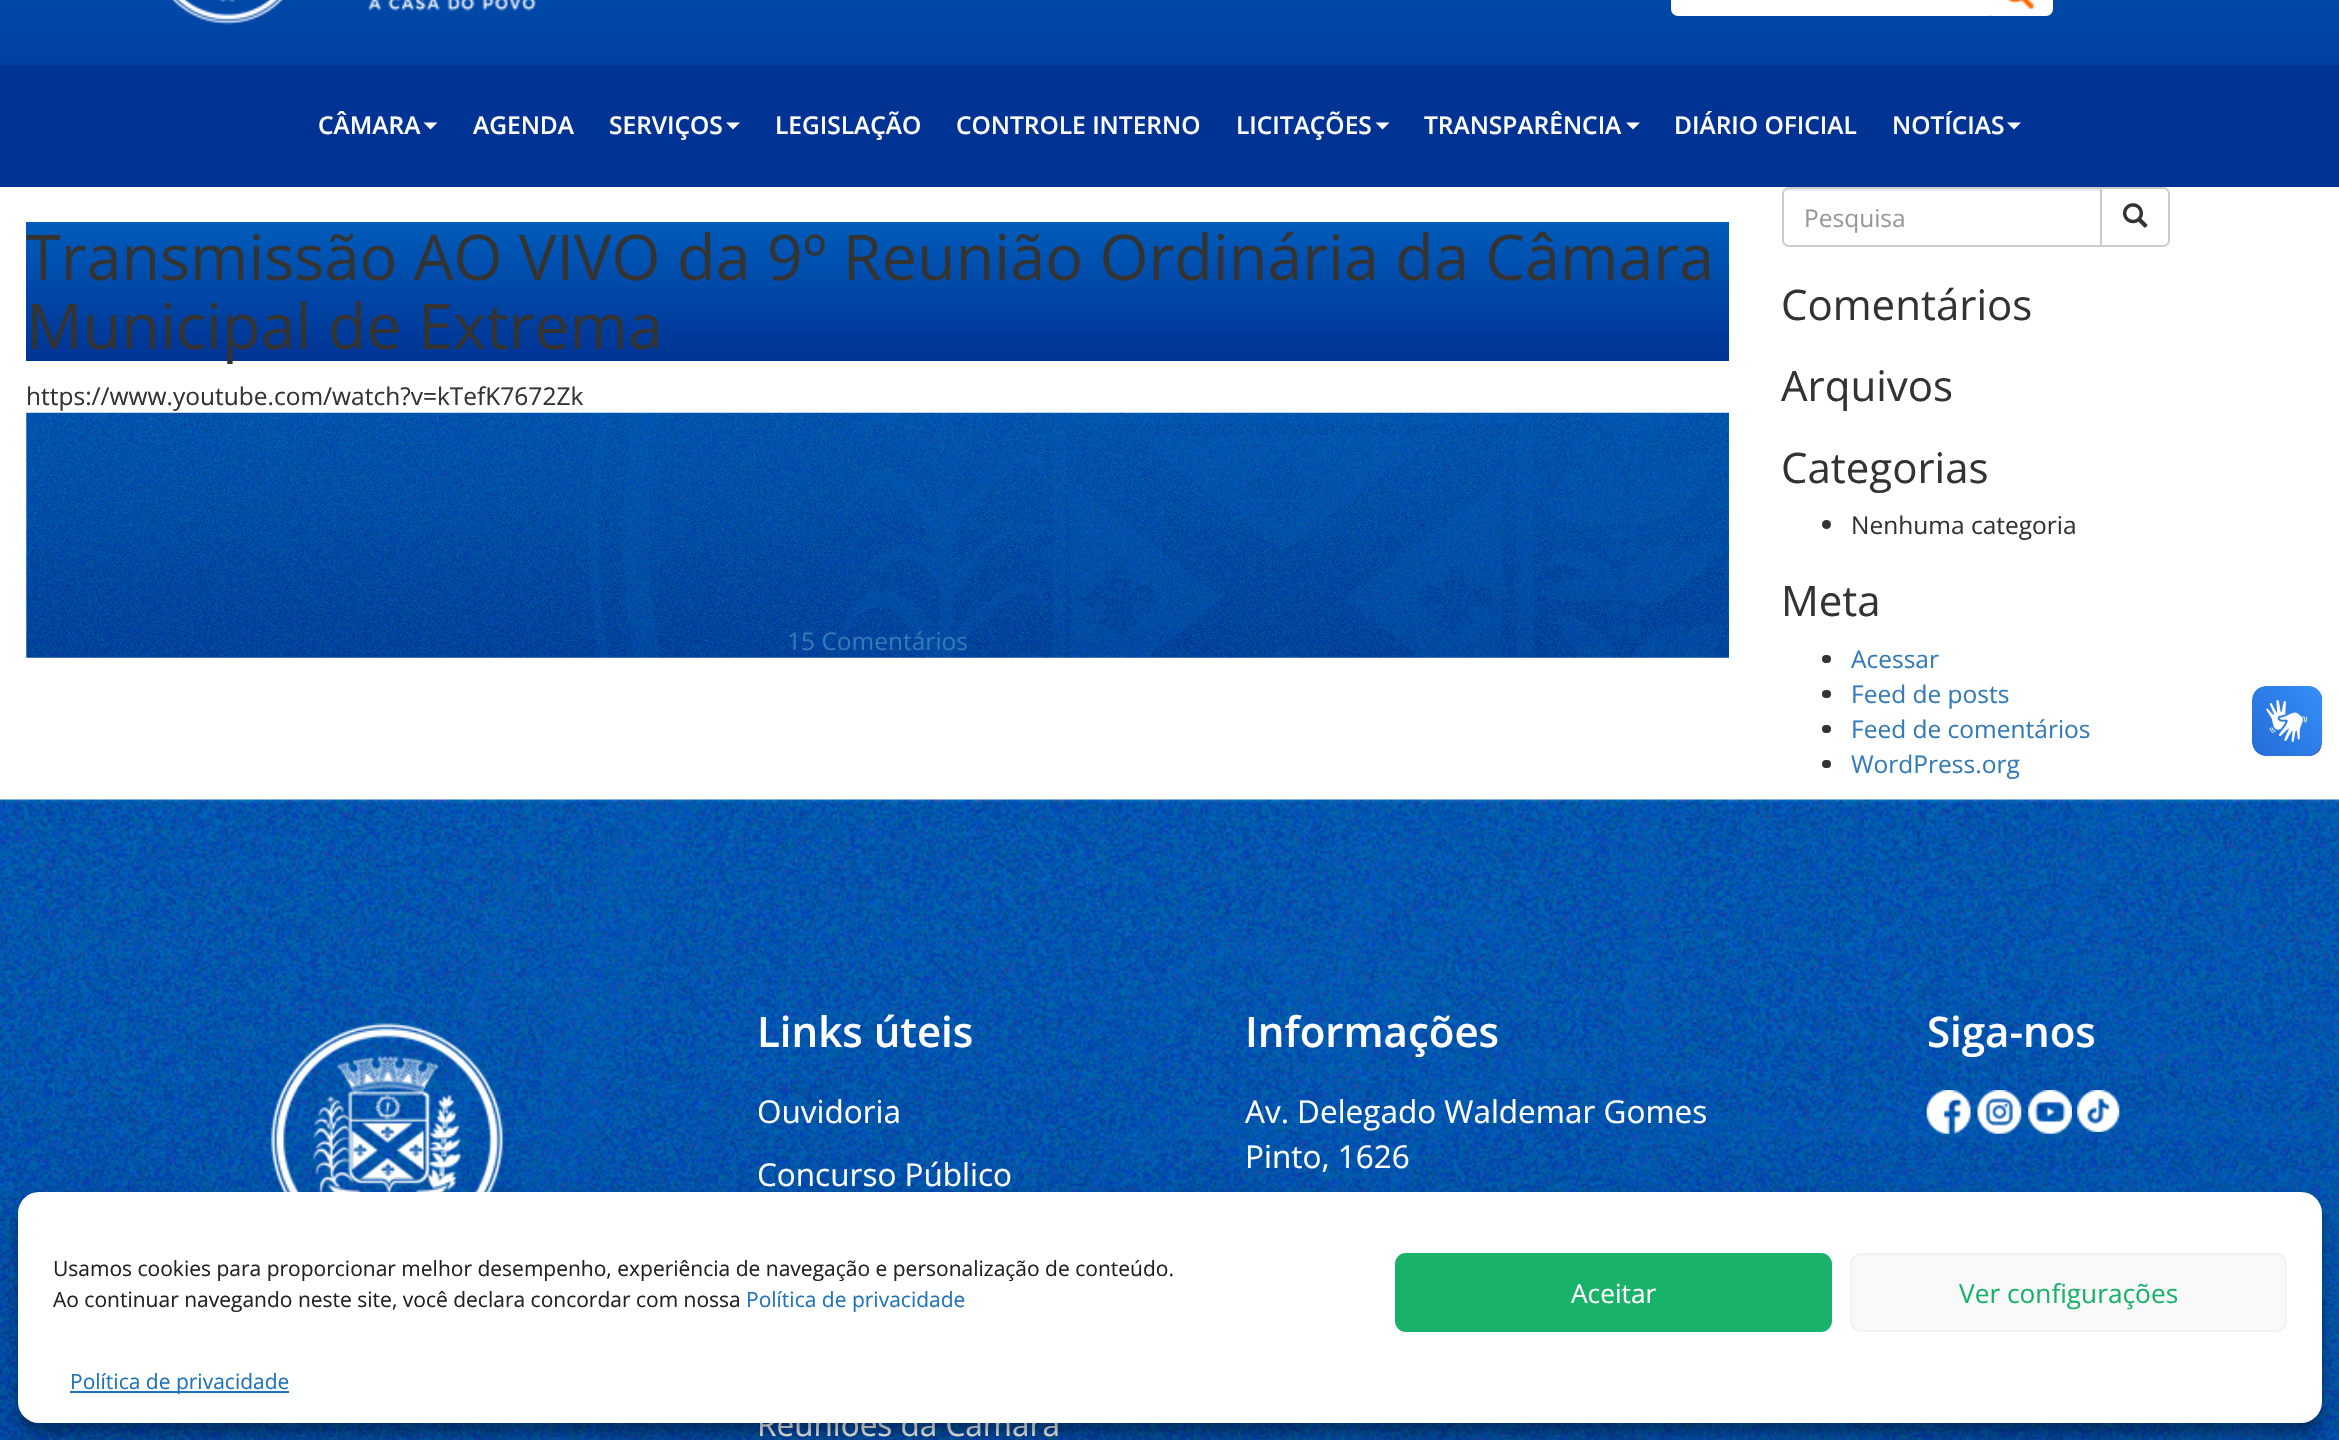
void draw(SkCanvas* canvas) {
	SkPaint paint;
	paint.setAntiAlias(true);
	auto svgPath = [&](const char* data, bool evenOdd = false) {
		SkPath result = *SkParsePath::FromSVGString(data);
		if (evenOdd) result.setFillType(SkPathFillType::kEvenOdd);
		return result;
	};
	canvas->clear(0xffffffff);
	{
		const SkColor colors[] = {0xff005cba, 0xff003394};
		const float stops[] = {0, 1};
		const SkPoint ends[] = {{1170, -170}, {1170, 187}};
		paint.setShader(SkGradientShader::MakeLinear(ends, colors, stops, 2, SkTileMode::kClamp));
		paint.setAlpha(255);
	}
	canvas->drawRect(SkRect::MakeXYWH(0, 0, 2339, 65), paint);
	canvas->drawImageRect(SkImages::DeferredFromEncodedData(SkData::MakeFromFileName("img1.png")), SkRect::MakeXYWH(171, 0, 365, 25), SkSamplingOptions());
	paint.setShader(nullptr);
	paint.setColor(0xffffffff);
	canvas->drawRoundRect(SkRect::MakeXYWH(1673, -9, 320, 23), 5, 5, paint);
	paint.setStroke(true);
	paint.setStrokeWidth(4);
	canvas->drawRoundRect(SkRect::MakeXYWH(1673, -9, 320, 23), 5, 5, paint);
	paint.setStroke(false);
	canvas->drawRoundRect(SkRect::MakeXYWH(1986, -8, 66, 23), 6, 6, paint);
	paint.setStroke(true);
	paint.setStrokeWidth(2);
	canvas->drawRoundRect(SkRect::MakeXYWH(1986, -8, 66, 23), 6, 6, paint);
	canvas->drawImageRect(SkImages::DeferredFromEncodedData(SkData::MakeFromFileName("img2.png")), SkRect::MakeXYWH(2007, 0, 27, 9), SkSamplingOptions());
	paint.setStroke(false);
	paint.setColor(0xff003394);
	canvas->drawRect(SkRect::MakeXYWH(0, 65, 2339, 122), paint);
	SkFont f1(fontMgr->matchFamilyStyle("Open Sans", SkFontStyle(600, SkFontStyle::kNormal_Width, SkFontStyle::kUpright_Slant)), 24.5);
	f1.setSubpixel(true);
	paint.setColor(0xffffffff);
	canvas->drawString("CÂMARA", 318, 134, f1, paint);
	canvas->drawPath(svgPath("M423.5 122.5H437.5L430.5 129.5Z"), paint);
	canvas->drawString("AGENDA", 473, 134, f1, paint);
	canvas->drawString("SERVIÇOS", 609, 134, f1, paint);
	canvas->drawPath(svgPath("M726 122.5H740L733 129.5Z"), paint);
	canvas->drawString("LEGISLAÇÃO", 775, 134, f1, paint);
	canvas->drawString("CONTROLE INTERNO", 956, 134, f1, paint);
	canvas->drawString("LICITAÇÕES", 1236, 134, f1, paint);
	canvas->drawPath(svgPath("M1375.5 122.5H1389.5L1382.5 129.5Z"), paint);
	canvas->drawString("TRANSPARÊNCIA", 1424, 134, f1, paint);
	canvas->drawPath(svgPath("M1626 122.5H1640L1633 129.5Z"), paint);
	canvas->drawString("DIÁRIO OFICIAL", 1674, 134, f1, paint);
	canvas->drawString("NOTÍCIAS", 1892, 134, f1, paint);
	canvas->drawPath(svgPath("M2007 122.5H2021L2014 129.5Z"), paint);
	{
		const SkColor colors[] = {0xff005cba, 0xff003394};
		const float stops[] = {0, 1};
		const SkPoint ends[] = {{878, 222}, {878, 361}};
		paint.setShader(SkGradientShader::MakeLinear(ends, colors, stops, 2, SkTileMode::kClamp));
		paint.setAlpha(255);
	}
	canvas->drawRect(SkRect::MakeXYWH(26, 222, 1703, 139), paint);
	SkFont f2(fontMgr->matchFamilyStyle("Open Sans", SkFontStyle::Normal()), 63);
	f2.setSubpixel(true);
	paint.setShader(nullptr);
	paint.setColor(0xff333333);
	canvas->drawString("Transmissão AO VIVO da 9º Reunião Ordinária da Câmara", 26, 280, f2, paint);
	canvas->drawString("Municipal de Extrema", 26, 349, f2, paint);
	SkFont f3(fontMgr->matchFamilyStyle("Open Sans", SkFontStyle::Normal()), 24.5);
	f3.setSubpixel(true);
	canvas->drawString("https://www.youtube.com/watch?v=kTefK7672Zk", 26, 405, f3, paint);
	canvas->drawImageRect(SkImages::DeferredFromEncodedData(SkData::MakeFromFileName("img3.png")), SkRect::MakeXYWH(26, 412, 1703, 246), SkSamplingOptions());
	paint.setColor(0xff337ab7);
	canvas->drawString("15 Comentários", 787, 650, f3, paint);
	paint.setColor(0xffececec);
	canvas->drawPath(svgPath("M1788 191H2100V189H1788C1785 189 1783 191 1783 194V196C1783 193 1786 191 1788 191Z"), paint);
	paint.setStroke(true);
	paint.setColor(0xffcccccc);
	canvas->drawPath(svgPath("M1789 188H2101V246H1789C1785.5 246 1783 243.5 1783 240V194C1783 190.5 1785.5 188 1789 188Z"), paint);
	paint.setStroke(false);
	paint.setColor(0xff999999);
	canvas->drawString("Pesquisa", 1804, 227, f3, paint);
	paint.setColor(0xffffffff);
	canvas->drawPath(svgPath("M2101 188H2163C2166.5 188 2169 190.5 2169 194V240C2169 243.5 2166.5 246 2163 246H2101Z"), paint);
	paint.setStroke(true);
	paint.setColor(0xffcccccc);
	canvas->drawPath(svgPath("M2101 188H2163C2166.5 188 2169 190.5 2169 194V240C2169 243.5 2166.5 246 2163 246H2101Z"), paint);
	canvas->drawImageRect(SkImages::DeferredFromEncodedData(SkData::MakeFromFileName("img4.png")), SkRect::MakeXYWH(2122, 203, 26, 25), SkSamplingOptions());
	SkFont f4(fontMgr->matchFamilyStyle("Open Sans", SkFontStyle::Normal()), 42);
	f4.setSubpixel(true);
	paint.setStroke(false);
	paint.setColor(0xff333333);
	canvas->drawString("Comentários", 1781, 320, f4, paint);
	canvas->drawString("Arquivos", 1781, 401, f4, paint);
	canvas->drawString("Categorias", 1781, 483, f4, paint);
	canvas->drawCircle(1826.5, 524.5, 4.5, paint);
	canvas->drawString("Nenhuma categoria", 1851, 534, f3, paint);
	canvas->drawString("Meta", 1781, 616, f4, paint);
	canvas->drawRoundRect(SkRect::MakeXYWH(1822, 655, 9, 8), 4, 4, paint);
	paint.setColor(0xff337ab7);
	canvas->drawString("Acessar", 1851, 668, f3, paint);
	paint.setColor(0xff333333);
	canvas->drawRoundRect(SkRect::MakeXYWH(1822, 690, 9, 8), 4, 4, paint);
	paint.setColor(0xff337ab7);
	canvas->drawString("Feed de posts", 1851, 703, f3, paint);
	paint.setColor(0xff333333);
	canvas->drawRoundRect(SkRect::MakeXYWH(1822, 725, 9, 8), 4, 4, paint);
	paint.setColor(0xff337ab7);
	canvas->drawString("Feed de comentários", 1851, 738, f3, paint);
	paint.setColor(0xff333333);
	canvas->drawRoundRect(SkRect::MakeXYWH(1822, 760, 9, 8), 4, 4, paint);
	paint.setColor(0xff337ab7);
	canvas->drawString("WordPress.org", 1851, 773, f3, paint);
	canvas->drawImageRect(SkImages::DeferredFromEncodedData(SkData::MakeFromFileName("img5.png")), SkRect::MakeXYWH(2252, 686, 71, 70), SkSamplingOptions());
	canvas->drawImageRect(SkImages::DeferredFromEncodedData(SkData::MakeFromFileName("img6.png")), SkRect::MakeXYWH(2252, 686, 70, 70), SkSamplingOptions());
	canvas->drawImageRect(SkImages::DeferredFromEncodedData(SkData::MakeFromFileName("img7.png")), SkRect::MakeXYWH(0, 799, 2339, 641), SkSamplingOptions());
	canvas->drawImageRect(SkImages::DeferredFromEncodedData(SkData::MakeFromFileName("img8.png")), SkRect::MakeXYWH(270, 1023, 234, 169), SkSamplingOptions());
	SkFont f5(fontMgr->matchFamilyStyle("Open Sans", SkFontStyle(600, SkFontStyle::kNormal_Width, SkFontStyle::kUpright_Slant)), 42);
	f5.setSubpixel(true);
	paint.setColor(0xffffffff);
	canvas->drawString("Links úteis", 757, 1047, f5, paint);
	SkFont f6(fontMgr->matchFamilyStyle("Open Sans", SkFontStyle::Normal()), 31.5);
	f6.setSubpixel(true);
	canvas->drawString("Ouvidoria", 757, 1123, f6, paint);
	canvas->drawString("Concurso Público", 757, 1186, f6, paint);
	canvas->drawString("Reuniões da Câmara", 757, 1436, f6, paint);
	canvas->drawString("Informações", 1245, 1047, f5, paint);
	canvas->drawString("Av. Delegado Waldemar Gomes", 1245, 1123, f6, paint);
	canvas->drawString("Pinto, 1626", 1245, 1168, f6, paint);
	canvas->drawString("Siga-nos", 1927, 1047, f5, paint);
	canvas->drawImageRect(SkImages::DeferredFromEncodedData(SkData::MakeFromFileName("img9.png")), SkRect::MakeXYWH(1926, 1090, 45, 44), SkSamplingOptions());
	canvas->drawImageRect(SkImages::DeferredFromEncodedData(SkData::MakeFromFileName("img10.png")), SkRect::MakeXYWH(1977, 1090, 45, 44), SkSamplingOptions());
	canvas->drawImageRect(SkImages::DeferredFromEncodedData(SkData::MakeFromFileName("img11.png")), SkRect::MakeXYWH(2028, 1090, 44, 44), SkSamplingOptions());
	canvas->drawImageRect(SkImages::DeferredFromEncodedData(SkData::MakeFromFileName("img12.png")), SkRect::MakeXYWH(2077, 1090, 43, 42), SkSamplingOptions());
	paint.setColor(0x3b000000);
	paint.setMaskFilter(SkMaskFilter::MakeBlur(kNormal_SkBlurStyle, 5));
	canvas->drawRoundRect(SkRect::MakeXYWH(18, 1202, 2304, 231), 21, 21, paint);
	paint.setMaskFilter(nullptr);
	paint.setColor(0x30000000);
	paint.setMaskFilter(SkMaskFilter::MakeBlur(kNormal_SkBlurStyle, 17.5));
	canvas->drawRoundRect(SkRect::MakeXYWH(18, 1209, 2304, 231), 21, 21, paint);
	paint.setMaskFilter(nullptr);
	paint.setColor(0xffffffff);
	canvas->drawRoundRect(SkRect::MakeXYWH(18, 1192, 2304, 231), 21, 21, paint);
	SkFont f7(fontMgr->matchFamilyStyle("Open Sans", SkFontStyle::Normal()), 21);
	f7.setSubpixel(true);
	paint.setColor(0xff222222);
	canvas->drawString("Usamos cookies para proporcionar melhor desempenho, experiência de navegação e personalização de conteúdo.", 53, 1276, f7, paint);
	canvas->drawString("Ao continuar navegando neste site, você declara concordar com nossa", 53, 1307, f7, paint);
	paint.setColor(0xff1e73be);
	canvas->drawString("Política de privacidade", 746, 1307, f7, paint);
	paint.setColor(0xff18b269);
	canvas->drawRoundRect(SkRect::MakeXYWH(1396, 1254, 435, 77), 10, 10, paint);
	paint.setStroke(true);
	canvas->drawRoundRect(SkRect::MakeXYWH(1396, 1254, 435, 77), 10, 10, paint);
	SkFont f8(fontMgr->matchFamilyStyle("Open Sans", SkFontStyle::Normal()), 26.25);
	f8.setSubpixel(true);
	paint.setStroke(false);
	paint.setColor(0xffffffff);
	canvas->drawString("Aceitar", 1571, 1303, f8, paint);
	paint.setColor(0xfff9f9f9);
	canvas->drawRoundRect(SkRect::MakeXYWH(1851, 1254, 435, 77), 10, 10, paint);
	paint.setStroke(true);
	paint.setColor(0xfff2f2f2);
	canvas->drawRoundRect(SkRect::MakeXYWH(1851, 1254, 435, 77), 10, 10, paint);
	paint.setStroke(false);
	paint.setColor(0xff18b269);
	canvas->drawString("Ver configurações", 1959, 1303, f8, paint);
	paint.setColor(0xff1e73be);
	canvas->drawRect(SkRect::MakeXYWH(70, 1391, 219, 2), paint);
	canvas->drawString("Política de privacidade", 70, 1389, f7, paint);
}
